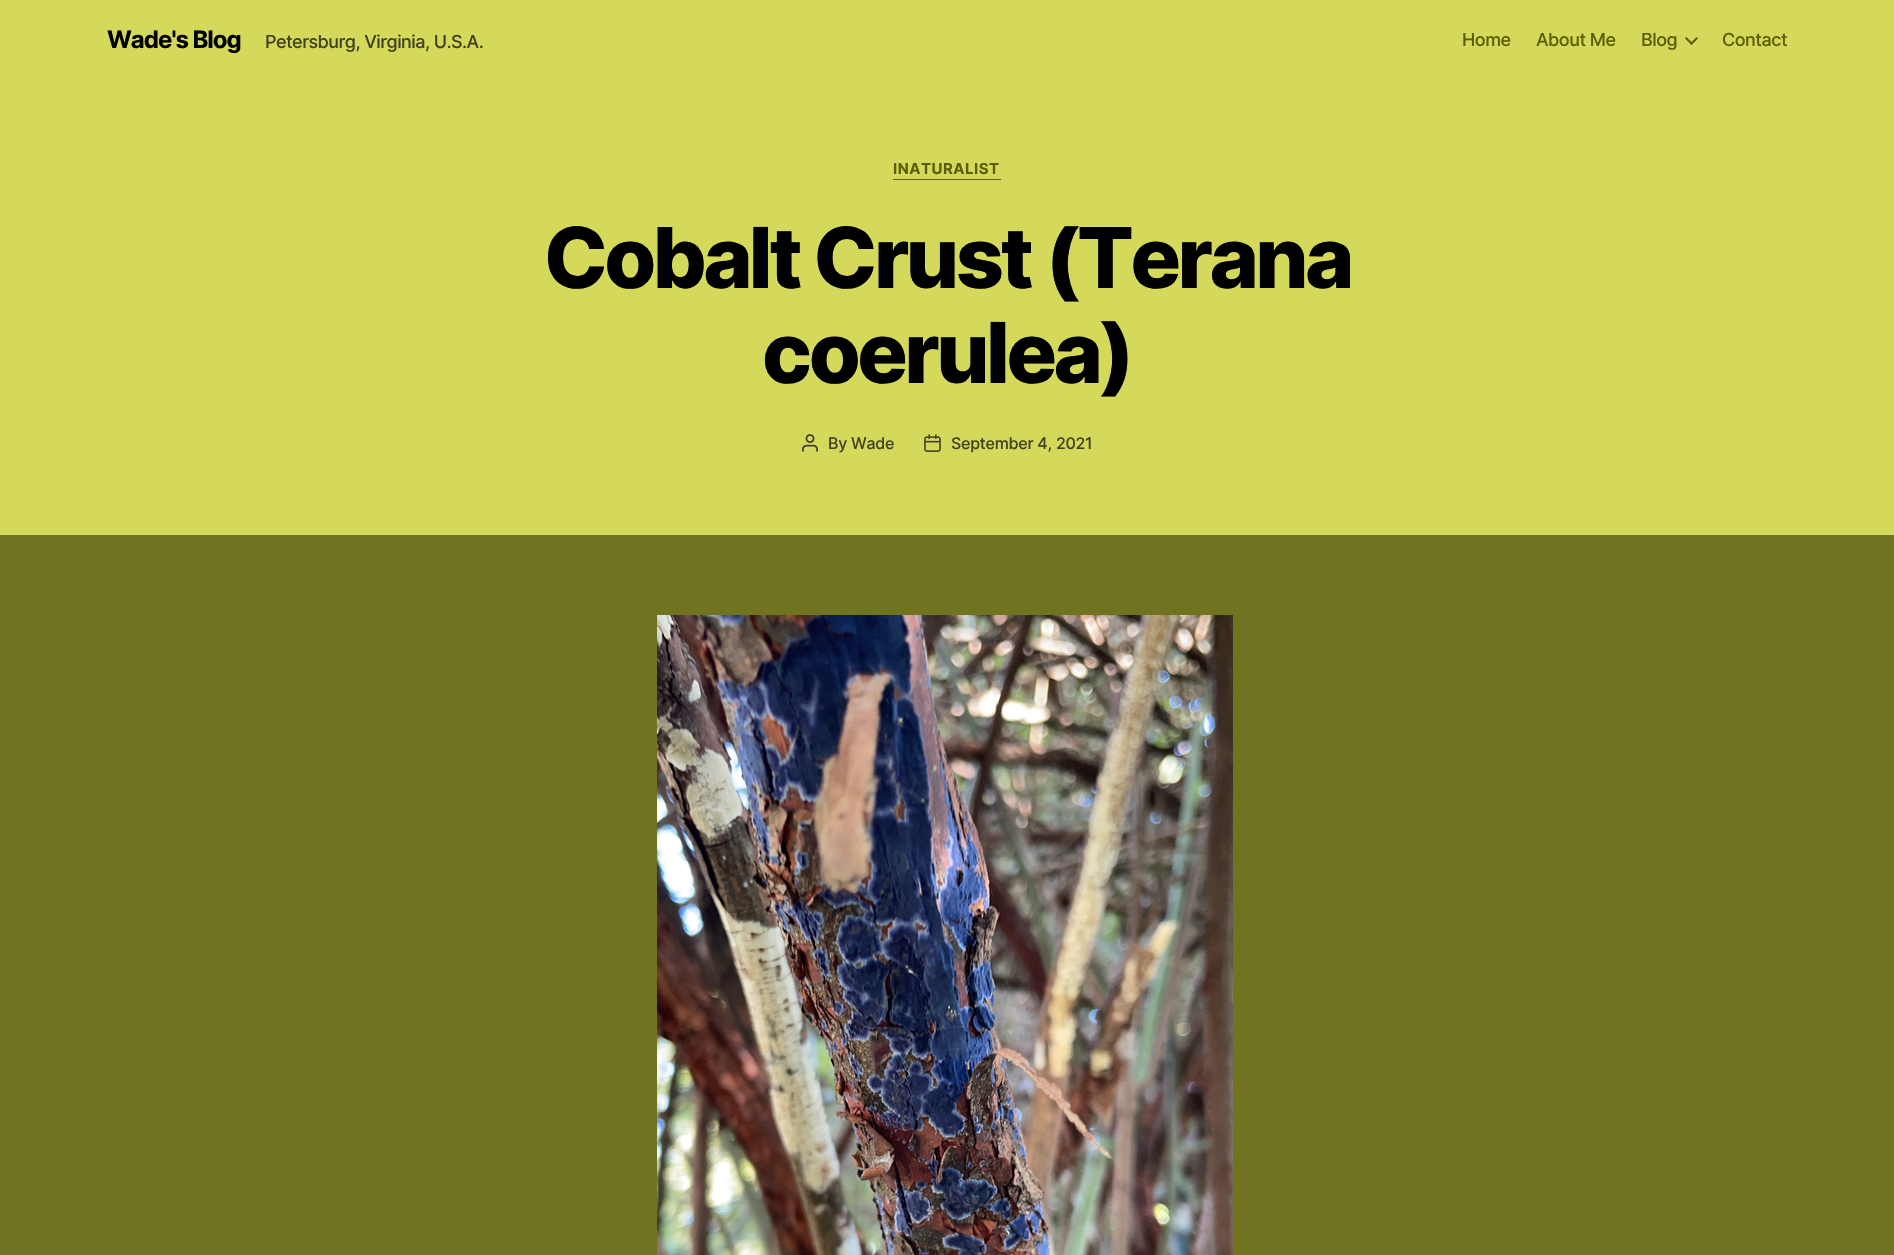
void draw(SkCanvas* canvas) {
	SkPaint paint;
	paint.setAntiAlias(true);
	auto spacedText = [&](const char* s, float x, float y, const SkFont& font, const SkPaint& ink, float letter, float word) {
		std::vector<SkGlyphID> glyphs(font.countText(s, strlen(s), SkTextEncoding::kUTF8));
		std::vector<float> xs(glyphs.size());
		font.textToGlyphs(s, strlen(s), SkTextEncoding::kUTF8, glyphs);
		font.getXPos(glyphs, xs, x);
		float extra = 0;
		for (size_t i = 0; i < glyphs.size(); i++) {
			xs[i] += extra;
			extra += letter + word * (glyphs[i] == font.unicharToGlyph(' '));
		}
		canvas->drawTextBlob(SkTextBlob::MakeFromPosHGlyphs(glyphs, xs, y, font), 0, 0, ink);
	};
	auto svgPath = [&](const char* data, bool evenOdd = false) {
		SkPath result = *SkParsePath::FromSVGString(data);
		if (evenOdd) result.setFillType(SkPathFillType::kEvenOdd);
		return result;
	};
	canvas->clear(0xff70731f);
	paint.setColor(0xffd5d95b);
	canvas->drawRect(SkRect::MakeXYWH(0, 0, 1894, 535), paint);
	SkFont f1(fontMgr->matchFamilyStyle("Inter", SkFontStyle::Bold()), 24);
	f1.setSubpixel(true);
	paint.setColor(0xff000000);
	spacedText("Wade's Blog", 107, 48, f1, paint, -1, 0);
	SkFont f2(fontMgr->matchFamilyStyle("Inter", SkFontStyle(500, SkFontStyle::kNormal_Width, SkFontStyle::kUpright_Slant)), 18);
	f2.setSubpixel(true);
	paint.setColor(0xff414223);
	spacedText("Petersburg, Virginia, U.S.A.", 265, 48, f2, paint, -0.55, 0);
	paint.setColor(0xff5d5d03);
	spacedText("Home", 1462, 46, f2, paint, -0.5, 0);
	spacedText("About Me", 1536, 46, f2, paint, -0.5, 0);
	spacedText("Blog", 1641, 46, f2, paint, -0.5, 0);
	canvas->drawPath(svgPath("M1685 38.5L1686.5 37L1693 43.5L1691.5 45Z"), paint);
	canvas->drawPath(svgPath("M1690 43.5L1696.5 37L1698 38.5L1691.5 45Z"), paint);
	spacedText("Contact", 1722, 46, f2, paint, -0.5, 0);
	canvas->drawRect(SkRect::MakeXYWH(893, 179, 108, 1), paint);
	SkFont f3(fontMgr->matchFamilyStyle("Inter", SkFontStyle::Bold()), 15);
	f3.setSubpixel(true);
	spacedText("INATURALIST", 893, 174, f3, paint, 0.5, 0);
	SkFont f4(fontMgr->matchFamilyStyle("Inter", SkFontStyle(800, SkFontStyle::kNormal_Width, SkFontStyle::kUpright_Slant)), 84);
	f4.setSubpixel(true);
	paint.setColor(0xff000000);
	spacedText("Cobalt Crust (Terana", 544, 288, f4, paint, -3.5, 0);
	spacedText("coerulea)", 762, 383, f4, paint, -3.5, 0);
	canvas->drawImageRect(SkImages::DeferredFromEncodedData(SkData::MakeFromFileName("img1.png")), SkRect::MakeXYWH(802, 434, 16, 18), SkSamplingOptions());
	SkFont f5(fontMgr->matchFamilyStyle("Inter", SkFontStyle(500, SkFontStyle::kNormal_Width, SkFontStyle::kUpright_Slant)), 16);
	f5.setSubpixel(true);
	paint.setColor(0xff414223);
	spacedText("By Wade", 828, 449, f5, paint, -0.25, 0);
	canvas->drawImageRect(SkImages::DeferredFromEncodedData(SkData::MakeFromFileName("img2.png")), SkRect::MakeXYWH(924, 434, 17, 18), SkSamplingOptions());
	spacedText("September 4, 2021", 951, 449, f5, paint, -0.25, 0);
	canvas->drawImageRect(SkImages::DeferredFromEncodedData(SkData::MakeFromFileName("img3.png")), SkRect::MakeXYWH(657, 615, 576, 640), SkSamplingOptions());
}
